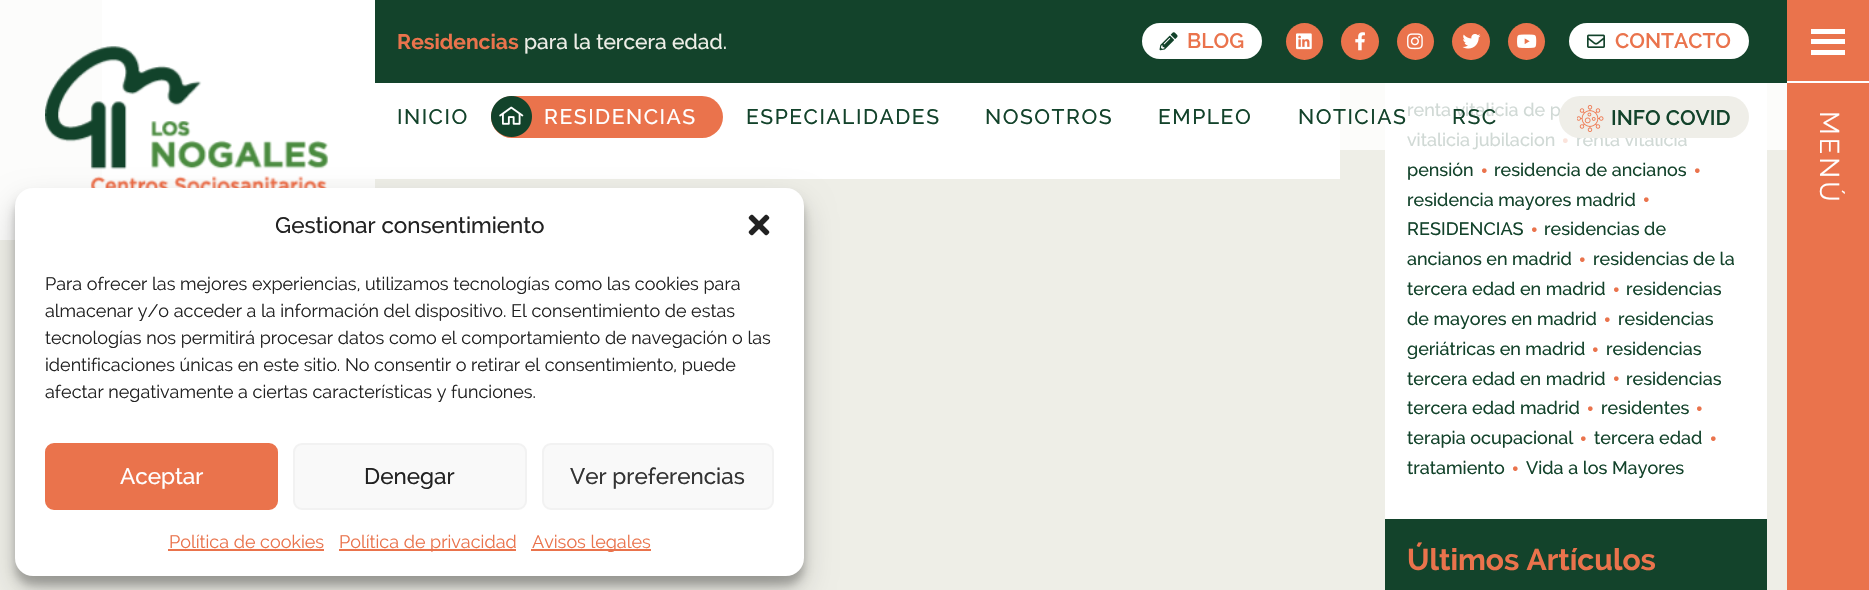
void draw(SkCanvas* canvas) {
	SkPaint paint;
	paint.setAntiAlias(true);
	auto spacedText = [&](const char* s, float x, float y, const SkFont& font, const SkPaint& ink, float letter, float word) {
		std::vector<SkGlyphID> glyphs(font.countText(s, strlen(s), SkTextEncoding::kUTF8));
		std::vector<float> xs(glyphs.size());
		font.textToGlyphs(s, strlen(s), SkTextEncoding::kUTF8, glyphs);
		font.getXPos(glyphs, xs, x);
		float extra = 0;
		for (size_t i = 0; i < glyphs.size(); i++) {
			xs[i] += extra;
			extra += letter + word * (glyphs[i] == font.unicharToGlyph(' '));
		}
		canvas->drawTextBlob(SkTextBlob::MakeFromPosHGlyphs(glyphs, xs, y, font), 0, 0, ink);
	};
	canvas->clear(0xffeeeee7);
	paint.setColor(0xfffcfcfa);
	canvas->drawRect(SkRect::MakeXYWH(1340, 83, 447, 67), paint);
	paint.setColor(0xffffffff);
	canvas->drawRect(SkRect::MakeXYWH(102, 0, 1238, 179), paint);
	paint.setColor(0xccffffff);
	canvas->drawRect(SkRect::MakeXYWH(0, 0, 375, 240), paint);
	canvas->drawImageRect(SkImages::DeferredFromEncodedData(SkData::MakeFromFileName("img1.png")), SkRect::MakeXYWH(45, 46, 284, 142), SkSamplingOptions());
	paint.setColor(0xff13432b);
	canvas->drawRect(SkRect::MakeXYWH(375, 0, 1412, 83), paint);
	SkFont f1(fontMgr->matchFamilyStyle("Raleway", SkFontStyle::Bold()), 21);
	f1.setSubpixel(true);
	paint.setColor(0xffea734c);
	canvas->drawString("Residencias", 397, 49, f1, paint);
	SkFont f2(fontMgr->matchFamilyStyle("Raleway", SkFontStyle(500, SkFontStyle::kNormal_Width, SkFontStyle::kUpright_Slant)), 21);
	f2.setSubpixel(true);
	paint.setColor(0xffeeeee7);
	canvas->drawString("para la tercera edad.", 524, 49, f2, paint);
	paint.setColor(0xffffffff);
	canvas->drawRoundRect(SkRect::MakeXYWH(1142, 23, 120, 36), 18, 18, paint);
	canvas->drawImageRect(SkImages::DeferredFromEncodedData(SkData::MakeFromFileName("img2.png")), SkRect::MakeXYWH(1159, 32, 19, 19), SkSamplingOptions());
	SkFont f3(fontMgr->matchFamilyStyle("Raleway", SkFontStyle(600, SkFontStyle::kNormal_Width, SkFontStyle::kUpright_Slant)), 21);
	f3.setSubpixel(true);
	paint.setColor(0xffea734c);
	canvas->drawString("BLOG", 1187, 48, f3, paint);
	canvas->drawCircle(1304.5, 41.5, 18.5, paint);
	canvas->drawImageRect(SkImages::DeferredFromEncodedData(SkData::MakeFromFileName("img3.png")), SkRect::MakeXYWH(1296, 33, 16, 17), SkSamplingOptions());
	canvas->drawRoundRect(SkRect::MakeXYWH(1341, 23, 38, 37), 18.5, 18.5, paint);
	canvas->drawImageRect(SkImages::DeferredFromEncodedData(SkData::MakeFromFileName("img4.png")), SkRect::MakeXYWH(1355, 32, 10, 19), SkSamplingOptions());
	canvas->drawCircle(1415.5, 41.5, 18.5, paint);
	canvas->drawImageRect(SkImages::DeferredFromEncodedData(SkData::MakeFromFileName("img5.png")), SkRect::MakeXYWH(1407, 33, 16, 17), SkSamplingOptions());
	canvas->drawRoundRect(SkRect::MakeXYWH(1452, 23, 38, 37), 18.5, 18.5, paint);
	canvas->drawImageRect(SkImages::DeferredFromEncodedData(SkData::MakeFromFileName("img6.png")), SkRect::MakeXYWH(1462, 34, 19, 15), SkSamplingOptions());
	canvas->drawCircle(1526.5, 41.5, 18.5, paint);
	canvas->drawImageRect(SkImages::DeferredFromEncodedData(SkData::MakeFromFileName("img7.png")), SkRect::MakeXYWH(1517, 34, 20, 14), SkSamplingOptions());
	paint.setColor(0xffffffff);
	canvas->drawRoundRect(SkRect::MakeXYWH(1569, 23, 180, 36), 18, 18, paint);
	canvas->drawImageRect(SkImages::DeferredFromEncodedData(SkData::MakeFromFileName("img8.png")), SkRect::MakeXYWH(1587, 34, 18, 14), SkSamplingOptions());
	paint.setColor(0xffea734c);
	canvas->drawString("CONTACTO", 1615, 48, f3, paint);
	paint.setColor(0xff13432b);
	spacedText("INICIO", 397, 124, f2, paint, 1.5, 0);
	paint.setColor(0xffea734c);
	canvas->drawRoundRect(SkRect::MakeXYWH(491, 96, 232, 42), 21, 21, paint);
	canvas->drawImageRect(SkImages::DeferredFromEncodedData(SkData::MakeFromFileName("img9.png")), SkRect::MakeXYWH(491, 96, 41, 41), SkSamplingOptions());
	paint.setColor(0xffffffff);
	spacedText("RESIDENCIAS", 544, 124, f2, paint, 1.5, 0);
	paint.setColor(0xff13432b);
	spacedText("ESPECIALIDADES", 746, 124, f2, paint, 1.5, 0);
	spacedText("NOSOTROS", 985, 124, f2, paint, 1.5, 0);
	spacedText("EMPLEO", 1158, 124, f2, paint, 1.5, 0);
	paint.setColor(0xffffffff);
	canvas->drawRect(SkRect::MakeXYWH(1385, 83, 382, 436), paint);
	paint.setColor(0xff13432b);
	spacedText("NOTICIAS", 1298, 124, f2, paint, 1.5, 0);
	SkFont f4(fontMgr->matchFamilyStyle("Raleway", SkFontStyle(500, SkFontStyle::kNormal_Width, SkFontStyle::kUpright_Slant)), 18);
	f4.setSubpixel(true);
	paint.setColor(0xffd0d9d5);
	canvas->drawString("renta vitalicia de p", 1407, 116, f4, paint);
	paint.setColor(0xff13432b);
	spacedText("RSC", 1452, 124, f2, paint, 1.5, 0);
	paint.setColor(0xffd0d9d5);
	canvas->drawString("renta vitalicia", 1576, 146, f4, paint);
	paint.setColor(0xffefeee8);
	canvas->drawRoundRect(SkRect::MakeXYWH(1559, 96, 190, 42), 21, 21, paint);
	canvas->drawImageRect(SkImages::DeferredFromEncodedData(SkData::MakeFromFileName("img10.png")), SkRect::MakeXYWH(1577, 105, 27, 27), SkSamplingOptions());
	paint.setColor(0xff13432b);
	canvas->drawString("INFO COVID", 1611, 125, f3, paint);
	paint.setColor(0xffea734c);
	canvas->drawRect(SkRect::MakeXYWH(1787, 0, 82, 590), paint);
	paint.setColor(0xffffffff);
	canvas->drawRect(SkRect::MakeXYWH(1787, 81, 82, 2), paint);
	canvas->drawRect(SkRect::MakeXYWH(1811, 39, 34, 5), paint);
	canvas->drawRect(SkRect::MakeXYWH(1811, 29, 34, 5), paint);
	canvas->drawRect(SkRect::MakeXYWH(1811, 50, 34, 5), paint);
	SkFont f5(fontMgr->matchFamilyStyle("Raleway", SkFontStyle::Normal()), 27);
	f5.setSubpixel(true);
	canvas->save();
	canvas->rotate(90, 1820, 111);
	spacedText("MENÚ", 1820, 111, f5, paint, 3, 0);
	canvas->restore();
	paint.setColor(0x3b000000);
	paint.setMaskFilter(SkMaskFilter::MakeBlur(kNormal_SkBlurStyle, 4.5));
	canvas->drawRoundRect(SkRect::MakeXYWH(15, 197, 789, 388), 18, 18, paint);
	paint.setMaskFilter(nullptr);
	paint.setColor(0x30000000);
	paint.setMaskFilter(SkMaskFilter::MakeBlur(kNormal_SkBlurStyle, 15));
	canvas->drawRoundRect(SkRect::MakeXYWH(15, 203, 789, 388), 18, 18, paint);
	paint.setMaskFilter(nullptr);
	paint.setColor(0xffffffff);
	canvas->drawRoundRect(SkRect::MakeXYWH(15, 188, 789, 388), 18, 18, paint);
	SkFont f6(fontMgr->matchFamilyStyle("Raleway", SkFontStyle(500, SkFontStyle::kNormal_Width, SkFontStyle::kUpright_Slant)), 22.5);
	f6.setSubpixel(true);
	paint.setColor(0xff222222);
	canvas->drawString("Gestionar consentimiento", 275, 233, f6, paint);
	canvas->drawImageRect(SkImages::DeferredFromEncodedData(SkData::MakeFromFileName("img11.png")), SkRect::MakeXYWH(748, 214, 22, 22), SkSamplingOptions());
	SkFont f7(fontMgr->matchFamilyStyle("Raleway", SkFontStyle::Normal()), 18);
	f7.setSubpixel(true);
	canvas->drawString("Para ofrecer las mejores experiencias, utilizamos tecnologías como las cookies para", 45, 290, f7, paint);
	canvas->drawString("almacenar y/o acceder a la información del dispositivo. El consentimiento de estas", 45, 317, f7, paint);
	canvas->drawString("tecnologías nos permitirá procesar datos como el comportamiento de navegación o las", 45, 344, f7, paint);
	canvas->drawString("identificaciones únicas en este sitio. No consentir o retirar el consentimiento, puede", 45, 371, f7, paint);
	canvas->drawString("afectar negativamente a ciertas características y funciones.", 45, 398, f7, paint);
	paint.setColor(0xffea734c);
	canvas->drawRoundRect(SkRect::MakeXYWH(46, 444, 231, 65), 8, 8, paint);
	paint.setStroke(true);
	paint.setStrokeWidth(2);
	canvas->drawRoundRect(SkRect::MakeXYWH(46, 444, 231, 65), 8, 8, paint);
	paint.setStroke(false);
	paint.setColor(0xffffffff);
	canvas->drawString("Aceptar", 120, 484, f6, paint);
	paint.setColor(0xfff9f9f9);
	canvas->drawRoundRect(SkRect::MakeXYWH(294, 444, 232, 65), 8, 8, paint);
	paint.setStroke(true);
	paint.setColor(0xfff2f2f2);
	canvas->drawRoundRect(SkRect::MakeXYWH(294, 444, 232, 65), 8, 8, paint);
	paint.setStroke(false);
	paint.setColor(0xff222222);
	canvas->drawString("Denegar", 364, 484, f6, paint);
	paint.setColor(0xfff9f9f9);
	canvas->drawRoundRect(SkRect::MakeXYWH(543, 444, 230, 65), 8, 8, paint);
	paint.setStroke(true);
	paint.setColor(0xfff2f2f2);
	canvas->drawRoundRect(SkRect::MakeXYWH(543, 444, 230, 65), 8, 8, paint);
	paint.setStroke(false);
	paint.setColor(0xff333333);
	canvas->drawString("Ver preferencias", 570, 484, f6, paint);
	paint.setColor(0xffea734c);
	canvas->drawString("Política de cookies", 169, 548, f7, paint);
	canvas->drawRect(SkRect::MakeXYWH(168, 549, 156, 2), paint);
	canvas->drawRect(SkRect::MakeXYWH(339, 549, 177, 2), paint);
	canvas->drawString("Política de privacidad", 339, 548, f7, paint);
	canvas->drawRect(SkRect::MakeXYWH(531, 549, 120, 2), paint);
	canvas->drawString("Avisos legales", 532, 548, f7, paint);
	paint.setColor(0xffd0d9d5);
	canvas->drawString("vitalicia jubilacion", 1407, 146, f4, paint);
	SkFont f8(fontMgr->matchFamilyStyle("Raleway", SkFontStyle(500, SkFontStyle::kNormal_Width, SkFontStyle::kUpright_Slant)), 24);
	f8.setSubpixel(true);
	paint.setColor(0xfffbe3db);
	canvas->drawString("•", 1561, 149, f8, paint);
	paint.setColor(0xff13432b);
	canvas->drawString("pensión", 1407, 176, f4, paint);
	paint.setColor(0xffea734c);
	canvas->drawString("•", 1480, 179, f8, paint);
	paint.setColor(0xff13432b);
	canvas->drawString("residencia de ancianos", 1494, 176, f4, paint);
	paint.setColor(0xffea734c);
	canvas->drawString("•", 1693, 179, f8, paint);
	paint.setColor(0xff13432b);
	canvas->drawString("residencia mayores madrid", 1407, 206, f4, paint);
	paint.setColor(0xffea734c);
	canvas->drawString("•", 1642, 208, f8, paint);
	paint.setColor(0xff13432b);
	canvas->drawString("RESIDENCIAS", 1407, 235, f4, paint);
	paint.setColor(0xffea734c);
	canvas->drawString("•", 1530, 238, f8, paint);
	paint.setColor(0xff13432b);
	canvas->drawString("residencias de", 1544, 235, f4, paint);
	canvas->drawString("ancianos en madrid", 1407, 265, f4, paint);
	paint.setColor(0xffea734c);
	canvas->drawString("•", 1578, 268, f8, paint);
	paint.setColor(0xff13432b);
	canvas->drawString("residencias de la", 1593, 265, f4, paint);
	canvas->drawString("tercera edad en madrid", 1407, 295, f4, paint);
	paint.setColor(0xffea734c);
	canvas->drawString("•", 1612, 298, f8, paint);
	paint.setColor(0xff13432b);
	canvas->drawString("residencias", 1626, 295, f4, paint);
	canvas->drawString("de mayores en madrid", 1407, 325, f4, paint);
	paint.setColor(0xffea734c);
	canvas->drawString("•", 1603, 328, f8, paint);
	paint.setColor(0xff13432b);
	canvas->drawString("residencias", 1618, 325, f4, paint);
	canvas->drawString("geriátricas en madrid", 1407, 355, f4, paint);
	paint.setColor(0xffea734c);
	canvas->drawString("•", 1591, 358, f8, paint);
	paint.setColor(0xff13432b);
	canvas->drawString("residencias", 1606, 355, f4, paint);
	canvas->drawString("tercera edad en madrid", 1407, 385, f4, paint);
	paint.setColor(0xffea734c);
	canvas->drawString("•", 1612, 387, f8, paint);
	paint.setColor(0xff13432b);
	canvas->drawString("residencias", 1626, 385, f4, paint);
	canvas->drawString("tercera edad madrid", 1407, 414, f4, paint);
	paint.setColor(0xffea734c);
	canvas->drawString("•", 1586, 417, f8, paint);
	paint.setColor(0xff13432b);
	canvas->drawString("residentes", 1601, 414, f4, paint);
	paint.setColor(0xffea734c);
	canvas->drawString("•", 1695, 417, f8, paint);
	paint.setColor(0xff13432b);
	canvas->drawString("terapia ocupacional", 1407, 444, f4, paint);
	paint.setColor(0xffea734c);
	canvas->drawString("•", 1579, 447, f8, paint);
	paint.setColor(0xff13432b);
	canvas->drawString("tercera edad", 1594, 444, f4, paint);
	paint.setColor(0xffea734c);
	canvas->drawString("•", 1709, 447, f8, paint);
	paint.setColor(0xff13432b);
	canvas->drawString("tratamiento", 1407, 474, f4, paint);
	paint.setColor(0xffea734c);
	canvas->drawString("•", 1511, 477, f8, paint);
	paint.setColor(0xff13432b);
	canvas->drawString("Vida a los Mayores", 1526, 474, f4, paint);
	canvas->drawRect(SkRect::MakeXYWH(1385, 519, 382, 71), paint);
	SkFont f9(fontMgr->matchFamilyStyle("Raleway", SkFontStyle::Bold()), 30);
	f9.setSubpixel(true);
	paint.setColor(0xffea734c);
	canvas->drawString("Últimos Artículos", 1407, 570, f9, paint);
}
